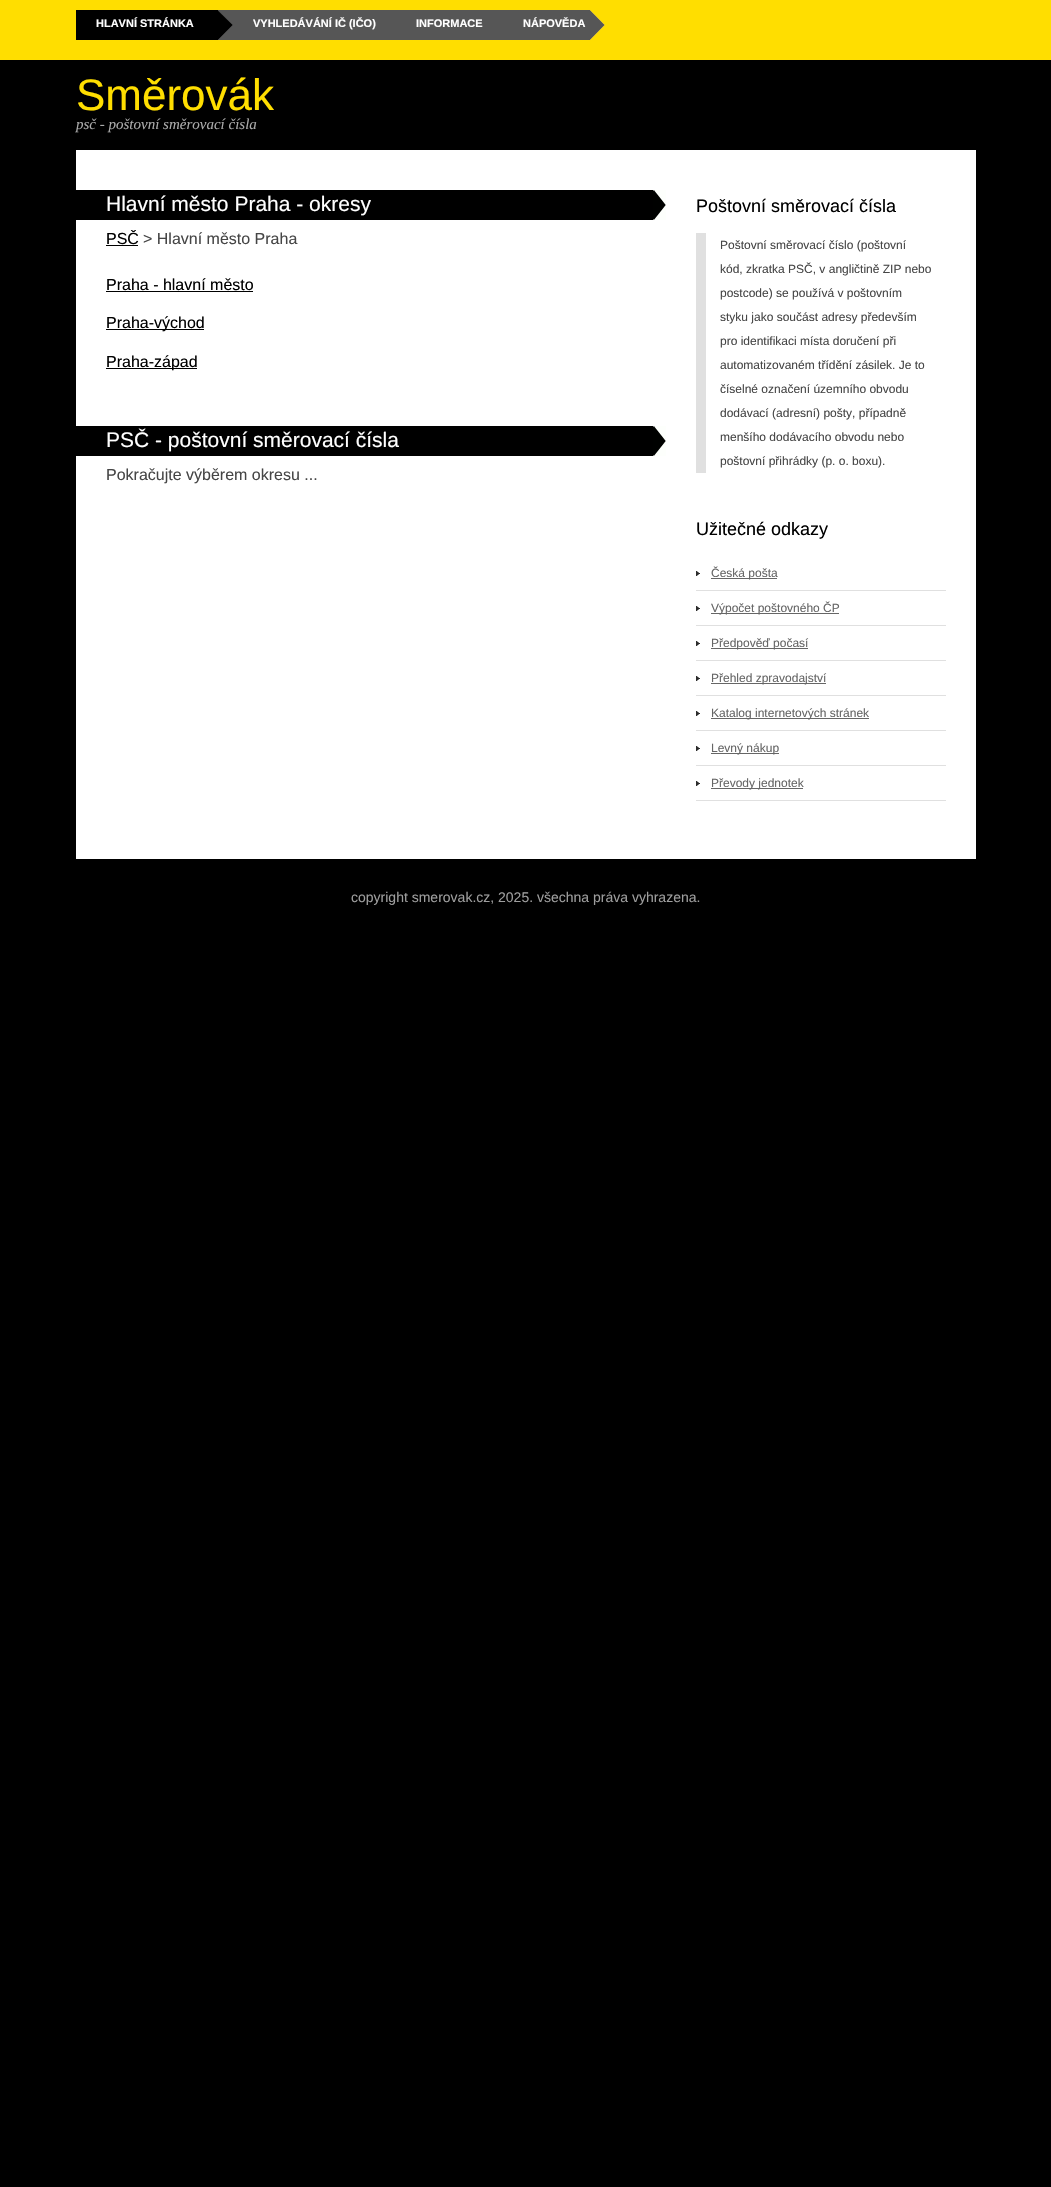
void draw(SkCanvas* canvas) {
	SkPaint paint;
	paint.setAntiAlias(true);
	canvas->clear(0xff000000);
	paint.setColor(0xffffde00);
	canvas->drawRect(SkRect::MakeXYWH(0, 0, 1051, 60), paint);
	paint.setColor(0xff000000);
	canvas->drawRect(SkRect::MakeXYWH(76, 10, 142, 30), paint);
	canvas->drawImageRect(SkImages::DeferredFromEncodedData(SkData::MakeFromFileName("img1.png")), SkRect::MakeXYWH(218, 10, 15, 30), SkSamplingOptions());
	SkFont f1(fontMgr->matchFamilyStyle("Liberation Sans", SkFontStyle::Bold()), 11);
	f1.setSubpixel(true);
	paint.setColor(0xffffffff);
	canvas->drawString("HLAVNÍ STRÁNKA", 96, 27, f1, paint);
	paint.setColor(0xff565656);
	canvas->drawRect(SkRect::MakeXYWH(233, 10, 357, 30), paint);
	paint.setColor(0xffffffff);
	canvas->drawString("VYHLEDÁVÁNÍ IČ (IČO)", 253, 27, f1, paint);
	canvas->drawString("INFORMACE", 416, 27, f1, paint);
	canvas->drawImageRect(SkImages::DeferredFromEncodedData(SkData::MakeFromFileName("img2.png")), SkRect::MakeXYWH(590, 10, 15, 30), SkSamplingOptions());
	canvas->drawString("NÁPOVĚDA", 523, 27, f1, paint);
	SkFont f2(fontMgr->matchFamilyStyle("Liberation Sans", SkFontStyle::Normal()), 44);
	f2.setSubpixel(true);
	paint.setColor(0xffffde00);
	canvas->drawString("Směrovák", 76, 110, f2, paint);
	SkFont f3(fontMgr->matchFamilyStyle("Liberation Serif", SkFontStyle::Italic()), 15);
	f3.setSubpixel(true);
	paint.setColor(0xffaaaaaa);
	canvas->drawString("psč - poštovní směrovací čísla", 76, 129, f3, paint);
	paint.setColor(0xffffffff);
	canvas->drawRect(SkRect::MakeXYWH(76, 150, 900, 709), paint);
	paint.setColor(0xff000000);
	canvas->drawRect(SkRect::MakeXYWH(76, 190, 577, 30), paint);
	canvas->drawImageRect(SkImages::DeferredFromEncodedData(SkData::MakeFromFileName("img3.png")), SkRect::MakeXYWH(653, 190, 13, 30), SkSamplingOptions());
	SkFont f4(fontMgr->matchFamilyStyle("Liberation Sans", SkFontStyle::Normal()), 21);
	f4.setSubpixel(true);
	paint.setColor(0xffffffff);
	canvas->drawString("Hlavní město Praha - okresy", 106, 211, f4, paint);
	SkFont f5(fontMgr->matchFamilyStyle("Liberation Sans", SkFontStyle::Normal()), 16);
	f5.setSubpixel(true);
	paint.setColor(0xff000000);
	canvas->drawString("PSČ", 106, 244, f5, paint);
	canvas->drawRect(SkRect::MakeXYWH(106, 245, 32, 1), paint);
	paint.setColor(0xff464646);
	canvas->drawString("> Hlavní město Praha", 143, 244, f5, paint);
	paint.setColor(0xff000000);
	canvas->drawString("Praha - hlavní město", 106, 290, f5, paint);
	canvas->drawRect(SkRect::MakeXYWH(106, 291, 147, 1), paint);
	canvas->drawRect(SkRect::MakeXYWH(106, 329, 98, 1), paint);
	canvas->drawString("Praha-východ", 106, 328, f5, paint);
	canvas->drawRect(SkRect::MakeXYWH(106, 368, 91, 1), paint);
	canvas->drawString("Praha-západ", 106, 367, f5, paint);
	canvas->drawRect(SkRect::MakeXYWH(76, 426, 577, 30), paint);
	canvas->drawImageRect(SkImages::DeferredFromEncodedData(SkData::MakeFromFileName("img3.png")), SkRect::MakeXYWH(653, 426, 13, 30), SkSamplingOptions());
	paint.setColor(0xffffffff);
	canvas->drawString("PSČ - poštovní směrovací čísla", 106, 447, f4, paint);
	paint.setColor(0xff464646);
	canvas->drawString("Pokračujte výběrem okresu ...", 106, 480, f5, paint);
	SkFont f6(fontMgr->matchFamilyStyle("Liberation Sans", SkFontStyle::Normal()), 18);
	f6.setSubpixel(true);
	paint.setColor(0xff000000);
	canvas->drawString("Poštovní směrovací čísla", 696, 212, f6, paint);
	paint.setColor(0xffe0e0e0);
	canvas->drawRect(SkRect::MakeXYWH(696, 233, 10, 240), paint);
	SkFont f7(fontMgr->matchFamilyStyle("Liberation Sans", SkFontStyle::Normal()), 12);
	f7.setSubpixel(true);
	paint.setColor(0xff464646);
	canvas->drawString("Poštovní směrovací číslo (poštovní", 720, 249, f7, paint);
	canvas->drawString("kód, zkratka PSČ, v angličtině ZIP nebo", 720, 273, f7, paint);
	canvas->drawString("postcode) se používá v poštovním", 720, 297, f7, paint);
	canvas->drawString("styku jako součást adresy především", 720, 321, f7, paint);
	canvas->drawString("pro identifikaci místa doručení při", 720, 345, f7, paint);
	canvas->drawString("automatizovaném třídění zásilek. Je to", 720, 369, f7, paint);
	canvas->drawString("číselné označení územního obvodu", 720, 393, f7, paint);
	canvas->drawString("dodávací (adresní) pošty, případně", 720, 417, f7, paint);
	canvas->drawString("menšího dodávacího obvodu nebo", 720, 441, f7, paint);
	canvas->drawString("poštovní přihrádky (p. o. boxu).", 720, 465, f7, paint);
	paint.setColor(0xff000000);
	canvas->drawString("Užitečné odkazy", 696, 535, f6, paint);
	canvas->drawImageRect(SkImages::DeferredFromEncodedData(SkData::MakeFromFileName("img4.png")), SkRect::MakeXYWH(696, 571, 4, 5), SkSamplingOptions());
	paint.setColor(0xffe0e0e0);
	canvas->drawRect(SkRect::MakeXYWH(696, 590, 250, 1), paint);
	paint.setColor(0xff666666);
	canvas->drawRect(SkRect::MakeXYWH(711, 578, 66, 1), paint);
	canvas->drawString("Česká pošta", 711, 577, f7, paint);
	canvas->drawImageRect(SkImages::DeferredFromEncodedData(SkData::MakeFromFileName("img4.png")), SkRect::MakeXYWH(696, 606, 4, 5), SkSamplingOptions());
	paint.setColor(0xffe0e0e0);
	canvas->drawRect(SkRect::MakeXYWH(696, 625, 250, 1), paint);
	paint.setColor(0xff666666);
	canvas->drawRect(SkRect::MakeXYWH(711, 613, 128, 1), paint);
	canvas->drawString("Výpočet poštovného ČP", 711, 612, f7, paint);
	canvas->drawImageRect(SkImages::DeferredFromEncodedData(SkData::MakeFromFileName("img4.png")), SkRect::MakeXYWH(696, 641, 4, 5), SkSamplingOptions());
	paint.setColor(0xffe0e0e0);
	canvas->drawRect(SkRect::MakeXYWH(696, 660, 250, 1), paint);
	paint.setColor(0xff666666);
	canvas->drawRect(SkRect::MakeXYWH(711, 648, 97, 1), paint);
	canvas->drawString("Předpověď počasí", 711, 647, f7, paint);
	canvas->drawImageRect(SkImages::DeferredFromEncodedData(SkData::MakeFromFileName("img4.png")), SkRect::MakeXYWH(696, 676, 4, 5), SkSamplingOptions());
	paint.setColor(0xffe0e0e0);
	canvas->drawRect(SkRect::MakeXYWH(696, 695, 250, 1), paint);
	paint.setColor(0xff666666);
	canvas->drawRect(SkRect::MakeXYWH(711, 683, 115, 1), paint);
	canvas->drawString("Přehled zpravodajství", 711, 682, f7, paint);
	canvas->drawImageRect(SkImages::DeferredFromEncodedData(SkData::MakeFromFileName("img4.png")), SkRect::MakeXYWH(696, 711, 4, 5), SkSamplingOptions());
	paint.setColor(0xffe0e0e0);
	canvas->drawRect(SkRect::MakeXYWH(696, 730, 250, 1), paint);
	paint.setColor(0xff666666);
	canvas->drawRect(SkRect::MakeXYWH(711, 718, 158, 1), paint);
	canvas->drawString("Katalog internetových stránek", 711, 717, f7, paint);
	canvas->drawImageRect(SkImages::DeferredFromEncodedData(SkData::MakeFromFileName("img4.png")), SkRect::MakeXYWH(696, 746, 4, 5), SkSamplingOptions());
	paint.setColor(0xffe0e0e0);
	canvas->drawRect(SkRect::MakeXYWH(696, 765, 250, 1), paint);
	paint.setColor(0xff666666);
	canvas->drawRect(SkRect::MakeXYWH(711, 753, 68, 1), paint);
	canvas->drawString("Levný nákup", 711, 752, f7, paint);
	canvas->drawImageRect(SkImages::DeferredFromEncodedData(SkData::MakeFromFileName("img4.png")), SkRect::MakeXYWH(696, 781, 4, 5), SkSamplingOptions());
	paint.setColor(0xffe0e0e0);
	canvas->drawRect(SkRect::MakeXYWH(696, 800, 250, 1), paint);
	paint.setColor(0xff666666);
	canvas->drawRect(SkRect::MakeXYWH(711, 788, 92, 1), paint);
	canvas->drawString("Převody jednotek", 711, 787, f7, paint);
	SkFont f8(fontMgr->matchFamilyStyle("Liberation Sans", SkFontStyle::Normal()), 14);
	f8.setSubpixel(true);
	paint.setColor(0xff9e9e9e);
	canvas->drawString("copyright smerovak.cz, 2025. všechna práva vyhrazena.", 351, 902, f8, paint);
}
